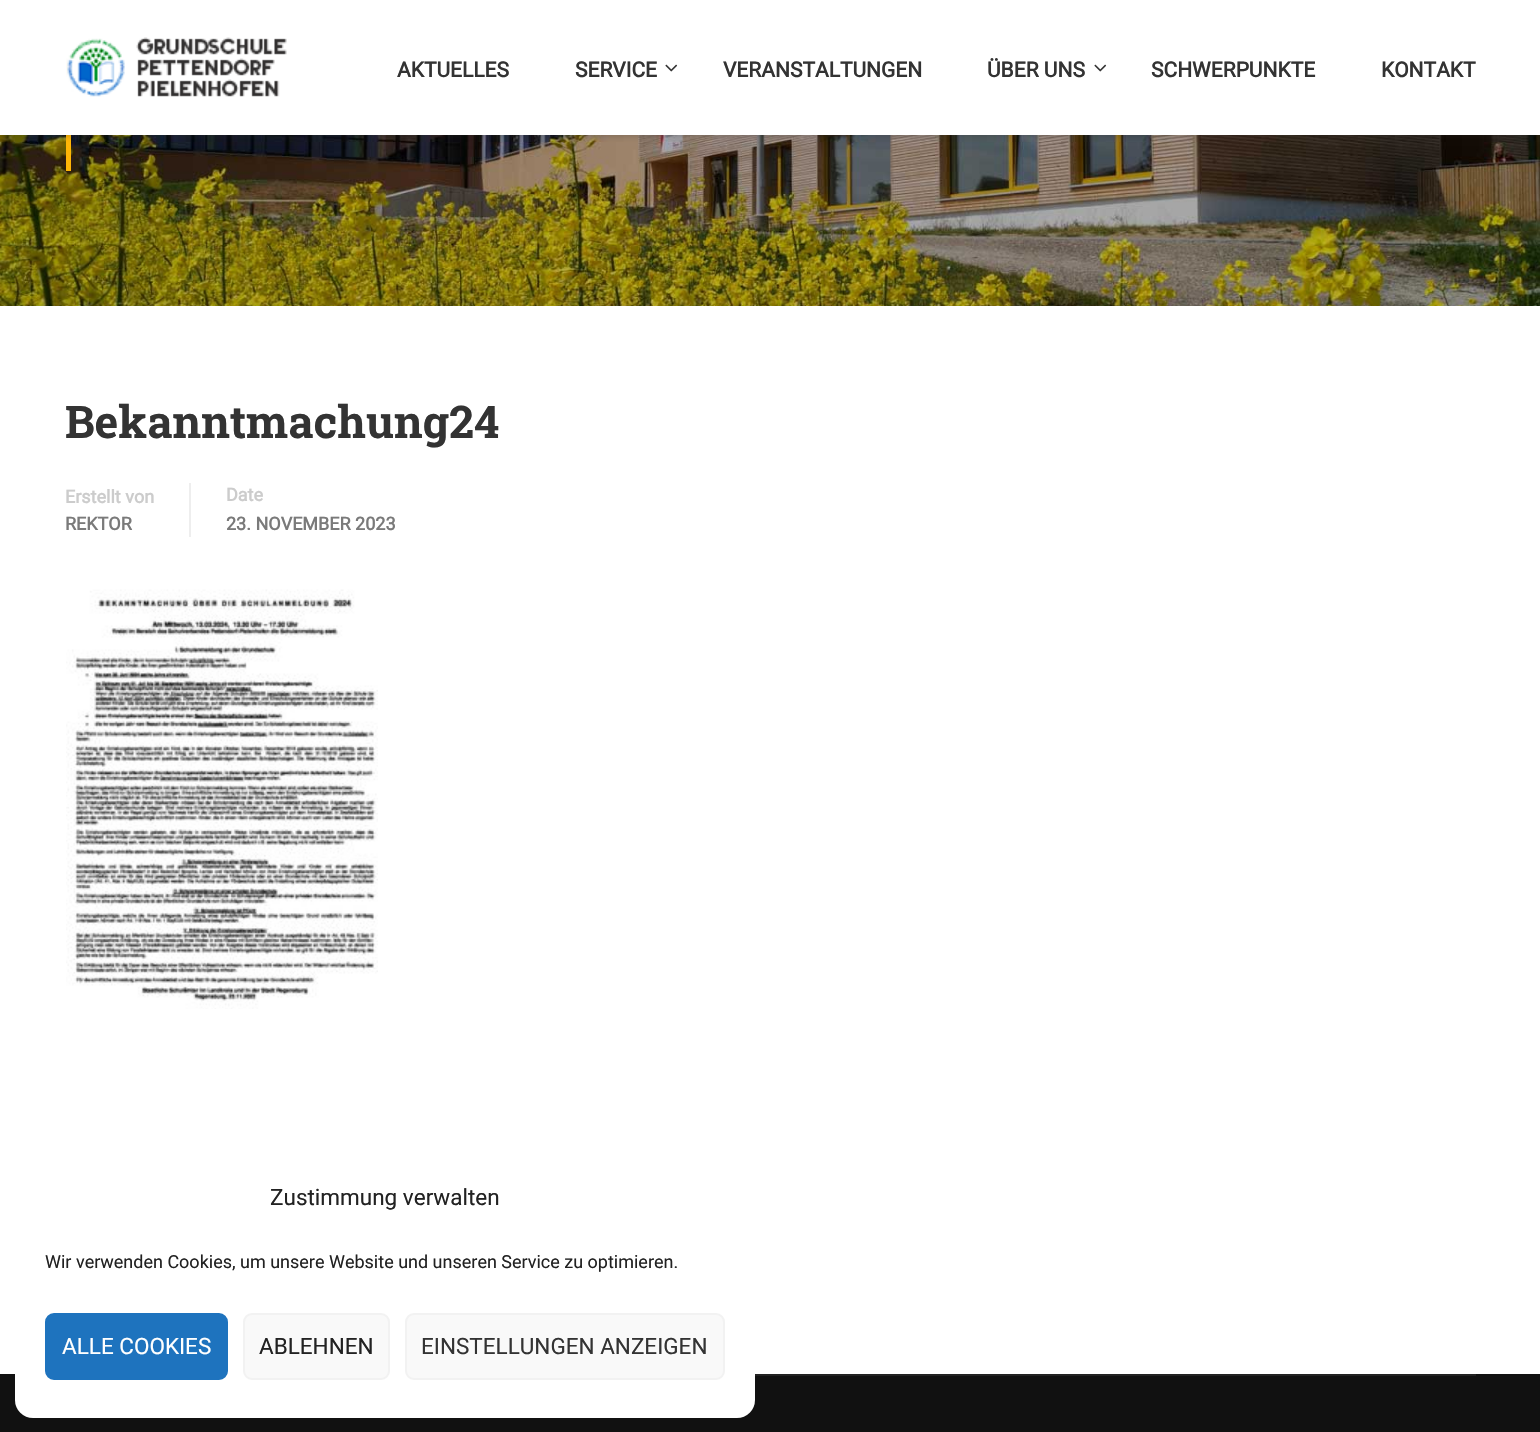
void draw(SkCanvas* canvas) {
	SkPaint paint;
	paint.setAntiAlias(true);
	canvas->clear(0xffffffff);
	canvas->drawImageRect(SkImages::DeferredFromEncodedData(SkData::MakeFromFileName("img3.png")), SkRect::MakeXYWH(0, 135, 1540, 171), SkSamplingOptions());
	paint.setColor(0xffffb606);
	canvas->drawRect(SkRect::MakeXYWH(66, 135, 5, 36), paint);
	paint.setColor(0x662a2a2a);
	paint.setMaskFilter(SkMaskFilter::MakeBlur(kNormal_SkBlurStyle, 4));
	canvas->drawRect(SkRect::MakeXYWH(3, 5, 1535, 129), paint);
	paint.setMaskFilter(nullptr);
	paint.setColor(0xffffffff);
	canvas->drawRect(SkRect::MakeXYWH(0, 0, 1540, 135), paint);
	canvas->drawImageRect(SkImages::DeferredFromEncodedData(SkData::MakeFromFileName("img1.png")), SkRect::MakeXYWH(66, 37, 221, 60), SkSamplingOptions());
	SkFont f1(fontMgr->matchFamilyStyle("Roboto", SkFontStyle::Bold()), 21);
	f1.setSubpixel(true);
	paint.setColor(0xff333333);
	canvas->drawString("AKTUELLES", 397, 77, f1, paint);
	canvas->drawString("SERVICE", 575, 77, f1, paint);
	canvas->drawImageRect(SkImages::DeferredFromEncodedData(SkData::MakeFromFileName("img2.png")), SkRect::MakeXYWH(665, 64, 13, 8), SkSamplingOptions());
	canvas->drawString("VERANSTALTUNGEN", 723, 77, f1, paint);
	canvas->drawString("ÜBER UNS", 987, 77, f1, paint);
	canvas->drawImageRect(SkImages::DeferredFromEncodedData(SkData::MakeFromFileName("img2.png")), SkRect::MakeXYWH(1094, 64, 13, 8), SkSamplingOptions());
	canvas->drawString("SCHWERPUNKTE", 1151, 77, f1, paint);
	canvas->drawString("KONTAKT", 1381, 77, f1, paint);
	SkFont f2(fontMgr->matchFamilyStyle("Roboto Slab", SkFontStyle::Bold()), 45);
	f2.setSubpixel(true);
	canvas->drawString("Bekanntmachung24", 65, 438, f2, paint);
	paint.setColor(0xffeeeeee);
	canvas->drawRect(SkRect::MakeXYWH(189, 483, 2, 54), paint);
	SkFont f3(fontMgr->matchFamilyStyle("Roboto", SkFontStyle::Bold()), 18);
	f3.setSubpixel(true);
	paint.setColor(0xffcccccc);
	canvas->drawString("Erstellt von", 65, 503, f3, paint);
	paint.setColor(0xff7a7a7a);
	canvas->drawString("REKTOR", 65, 530, f3, paint);
	paint.setColor(0xffcccccc);
	canvas->drawString("Date", 226, 501, f3, paint);
	paint.setColor(0xff7a7a7a);
	canvas->drawString("23. NOVEMBER 2023", 226, 530, f3, paint);
	canvas->drawImageRect(SkImages::DeferredFromEncodedData(SkData::MakeFromFileName("img4.png")), SkRect::MakeXYWH(66, 589, 312, 420), SkSamplingOptions());
	paint.setColor(0xff111111);
	canvas->drawRect(SkRect::MakeXYWH(0, 1374, 1540, 58), paint);
	paint.setColor(0xff222222);
	canvas->drawRect(SkRect::MakeXYWH(755, 1374, 721, 2), paint);
	paint.setColor(0xffffffff);
	canvas->drawRoundRect(SkRect::MakeXYWH(15, 1158, 740, 260), 18, 18, paint);
	SkFont f4(fontMgr->matchFamilyStyle("Roboto", SkFontStyle::Normal()), 22.5);
	f4.setSubpixel(true);
	paint.setColor(0xff222222);
	canvas->drawString("Zustimmung verwalten", 270, 1205, f4, paint);
	SkFont f5(fontMgr->matchFamilyStyle("Roboto", SkFontStyle::Normal()), 18);
	f5.setSubpixel(true);
	canvas->drawString("Wir verwenden Cookies, um unsere Website und unseren Service zu optimieren.", 45, 1268, f5, paint);
	paint.setColor(0xff1e73be);
	canvas->drawRoundRect(SkRect::MakeXYWH(46, 1314, 181, 65), 8, 8, paint);
	paint.setStroke(true);
	paint.setStrokeWidth(2);
	canvas->drawRoundRect(SkRect::MakeXYWH(46, 1314, 181, 65), 8, 8, paint);
	paint.setStroke(false);
	paint.setColor(0xffffffff);
	canvas->drawString("ALLE COOKIES", 62, 1354, f4, paint);
	paint.setColor(0xfff9f9f9);
	canvas->drawRoundRect(SkRect::MakeXYWH(244, 1314, 145, 65), 8, 8, paint);
	paint.setStroke(true);
	paint.setColor(0xfff2f2f2);
	canvas->drawRoundRect(SkRect::MakeXYWH(244, 1314, 145, 65), 8, 8, paint);
	paint.setStroke(false);
	paint.setColor(0xff222222);
	canvas->drawString("ABLEHNEN", 259, 1354, f4, paint);
	paint.setColor(0xfff9f9f9);
	canvas->drawRoundRect(SkRect::MakeXYWH(406, 1314, 318, 65), 8, 8, paint);
	paint.setStroke(true);
	paint.setColor(0xfff2f2f2);
	canvas->drawRoundRect(SkRect::MakeXYWH(406, 1314, 318, 65), 8, 8, paint);
	paint.setStroke(false);
	paint.setColor(0xff333333);
	canvas->drawString("EINSTELLUNGEN ANZEIGEN", 421, 1354, f4, paint);
}
